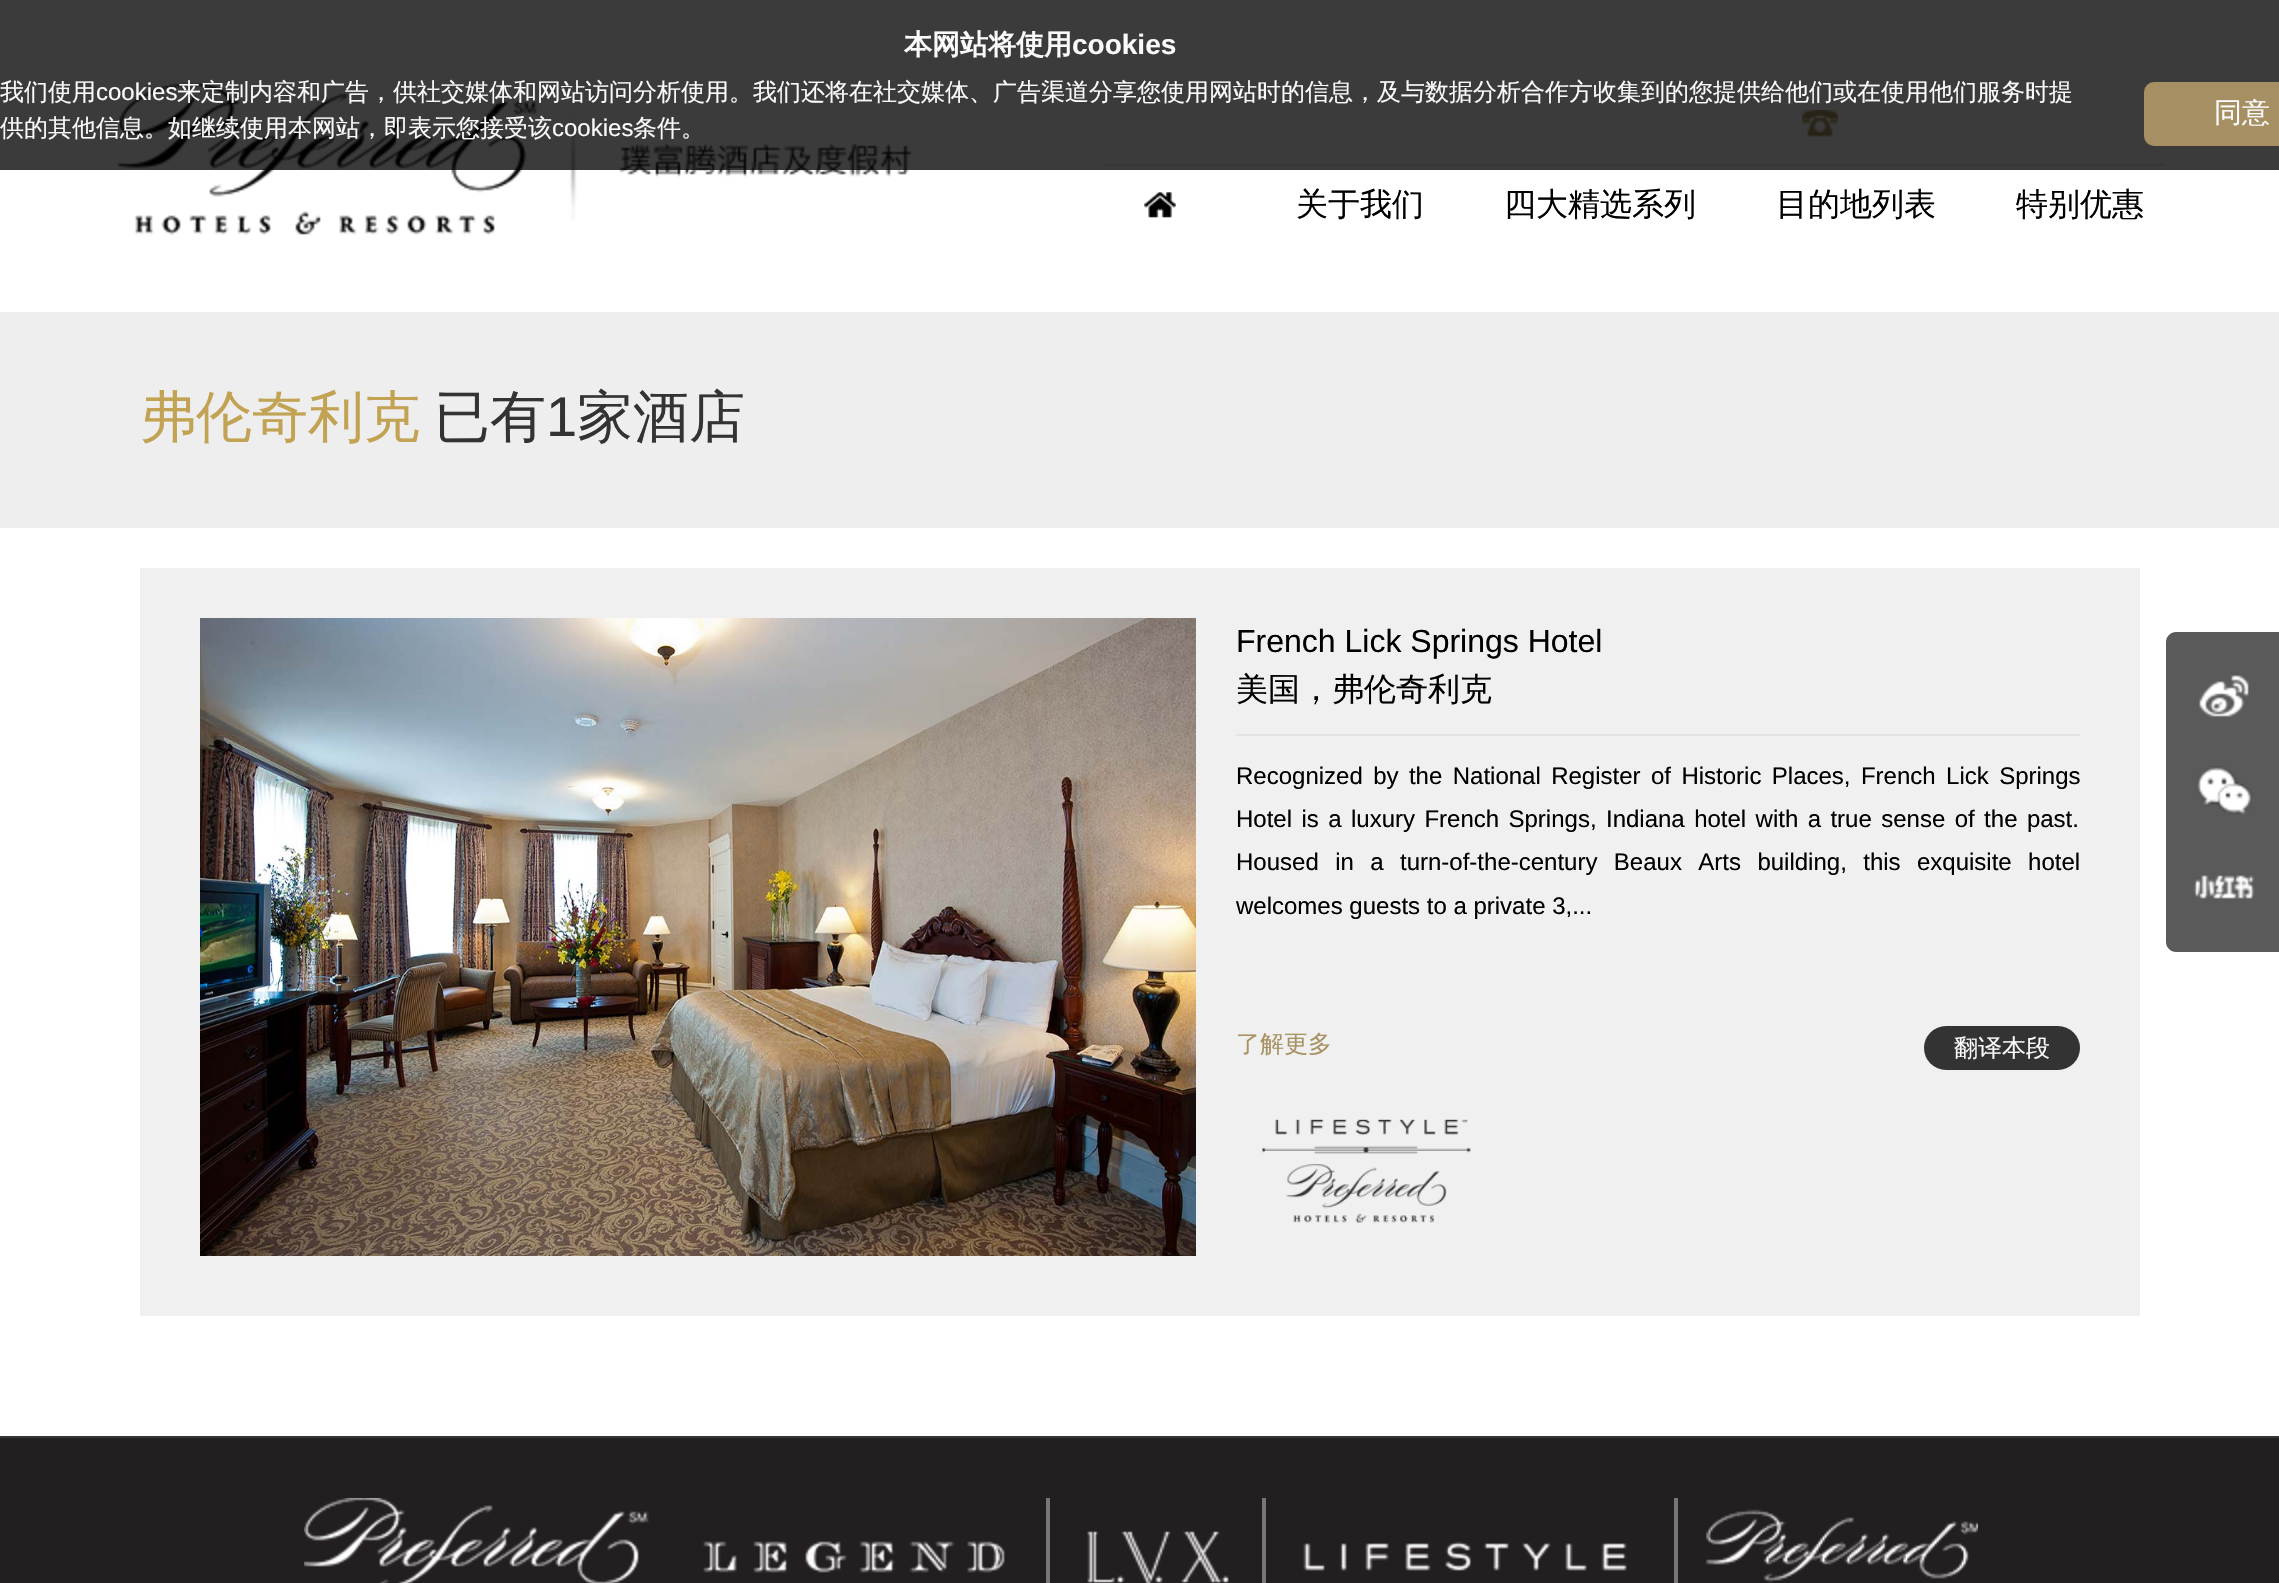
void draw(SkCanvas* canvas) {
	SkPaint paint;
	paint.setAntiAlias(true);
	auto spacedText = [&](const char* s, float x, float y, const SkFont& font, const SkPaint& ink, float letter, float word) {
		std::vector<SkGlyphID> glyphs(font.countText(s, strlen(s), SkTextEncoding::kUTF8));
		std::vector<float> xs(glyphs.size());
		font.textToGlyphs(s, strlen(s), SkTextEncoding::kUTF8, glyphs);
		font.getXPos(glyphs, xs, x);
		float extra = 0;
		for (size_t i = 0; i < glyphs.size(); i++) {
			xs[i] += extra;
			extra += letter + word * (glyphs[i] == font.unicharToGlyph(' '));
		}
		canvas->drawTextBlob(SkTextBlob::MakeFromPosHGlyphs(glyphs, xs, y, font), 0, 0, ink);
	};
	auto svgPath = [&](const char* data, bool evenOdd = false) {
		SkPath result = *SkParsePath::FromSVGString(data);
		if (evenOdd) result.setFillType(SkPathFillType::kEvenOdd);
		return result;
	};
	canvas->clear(0xffffffff);
	canvas->drawImageRect(SkImages::DeferredFromEncodedData(SkData::MakeFromFileName("img1.png")), SkRect::MakeXYWH(117, 83, 796, 152), SkSamplingOptions());
	paint.setColor(0xffe8e6e6);
	canvas->drawRect(SkRect::MakeXYWH(1104, 164, 1060, 2), paint);
	canvas->drawImageRect(SkImages::DeferredFromEncodedData(SkData::MakeFromFileName("img2.png")), SkRect::MakeXYWH(1802, 110, 36, 27), SkSamplingOptions());
	paint.setColor(0xc4000000);
	canvas->drawRect(SkRect::MakeXYWH(0, 0, 2279, 170), paint);
	SkFont f1(fontMgr->matchFamilyStyle("WenQuanYi Zen Hei", SkFontStyle::Bold()), 28);
	f1.setSubpixel(true);
	paint.setColor(0xfffafafa);
	canvas->drawString("本网站将使用", 904, 54, f1, paint);
	SkFont f2(fontMgr->matchFamilyStyle("Liberation Sans", SkFontStyle::Bold()), 28);
	f2.setSubpixel(true);
	canvas->drawString("cookies", 1072, 54, f2, paint);
	SkFont f3(fontMgr->matchFamilyStyle("WenQuanYi Zen Hei", SkFontStyle(500, SkFontStyle::kNormal_Width, SkFontStyle::kUpright_Slant)), 24);
	f3.setSubpixel(true);
	canvas->drawString("我们使用", 0, 100, f3, paint);
	SkFont f4(fontMgr->matchFamilyStyle("Liberation Sans", SkFontStyle::Normal()), 24);
	f4.setSubpixel(true);
	canvas->drawString("cookies", 96, 100, f4, paint);
	canvas->drawString("来定制内容和广告，供社交媒体和网站访问分析使用。我们还将在社交媒体、广告渠道分享您使用网站时的信息，及与数据分析合作方收集到的您提供给他们或在使用他们服务时提", 177, 100, f3, paint);
	canvas->drawString("供的其他信息。如继续使用本网站，即表示您接受该", 0, 136, f3, paint);
	canvas->drawString("cookies", 552, 136, f4, paint);
	canvas->drawString("条件。", 633, 136, f3, paint);
	paint.setColor(0xffa69063);
	canvas->drawRoundRect(SkRect::MakeXYWH(2144, 82, 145, 64), 10, 10, paint);
	SkFont f5(fontMgr->matchFamilyStyle("WenQuanYi Zen Hei", SkFontStyle(500, SkFontStyle::kNormal_Width, SkFontStyle::kUpright_Slant)), 28);
	f5.setSubpixel(true);
	paint.setColor(0xfffafafa);
	canvas->drawString("同意", 2214, 122, f5, paint);
	canvas->drawImageRect(SkImages::DeferredFromEncodedData(SkData::MakeFromFileName("img3.png")), SkRect::MakeXYWH(1144, 192, 32, 26), SkSamplingOptions());
	SkFont f6(fontMgr->matchFamilyStyle("WenQuanYi Zen Hei", SkFontStyle(500, SkFontStyle::kNormal_Width, SkFontStyle::kUpright_Slant)), 32);
	f6.setSubpixel(true);
	paint.setColor(0xff000000);
	canvas->drawString("关于我们", 1296, 215, f6, paint);
	canvas->drawString("四大精选系列", 1504, 215, f6, paint);
	canvas->drawString("目的地列表", 1776, 215, f6, paint);
	canvas->drawString("特别优惠", 2016, 215, f6, paint);
	paint.setColor(0xffeeeeee);
	canvas->drawRect(SkRect::MakeXYWH(0, 312, 2279, 216), paint);
	SkFont f7(fontMgr->matchFamilyStyle("WenQuanYi Zen Hei", SkFontStyle(500, SkFontStyle::kNormal_Width, SkFontStyle::kUpright_Slant)), 56);
	f7.setSubpixel(true);
	paint.setColor(0xffc2a354);
	canvas->drawString("弗伦奇利克", 140, 436, f7, paint);
	paint.setColor(0xff333333);
	canvas->drawString("已有", 434, 436, f7, paint);
	SkFont f8(fontMgr->matchFamilyStyle("Liberation Sans", SkFontStyle::Normal()), 56);
	f8.setSubpixel(true);
	canvas->drawString("1", 546, 436, f8, paint);
	canvas->drawString("家酒店", 577, 436, f7, paint);
	paint.setColor(0xfff0f0f0);
	canvas->drawRect(SkRect::MakeXYWH(140, 568, 2000, 748), paint);
	canvas->drawImageRect(SkImages::DeferredFromEncodedData(SkData::MakeFromFileName("img4.png")), SkRect::MakeXYWH(200, 618, 996, 638), SkSamplingOptions());
	SkFont f9(fontMgr->matchFamilyStyle("Liberation Sans", SkFontStyle::Normal()), 32);
	f9.setSubpixel(true);
	paint.setColor(0xff000000);
	canvas->drawString("French Lick Springs Hotel", 1236, 652, f9, paint);
	canvas->drawString("美国，弗伦奇利克", 1236, 700, f6, paint);
	paint.setColor(0xffe3e3e3);
	canvas->drawRect(SkRect::MakeXYWH(1236, 734, 844, 2), paint);
	paint.setColor(0xff000000);
	spacedText("Recognized by the National Register of Historic Places, French Lick Springs", 1236, 784, f4, paint, 0, 3.75);
	spacedText("Hotel is a luxury French Springs, Indiana hotel with a true sense of the past.", 1236, 827, f4, paint, 0, 2.75);
	spacedText("Housed in a turn-of-the-century Beaux Arts building, this exquisite hotel", 1236, 870, f4, paint, 0, 9.75);
	canvas->drawString("welcomes guests to a private 3,...", 1236, 914, f4, paint);
	paint.setColor(0xffa79262);
	canvas->drawString("了解更多", 1236, 1052, f3, paint);
	paint.setColor(0xff333333);
	canvas->drawRoundRect(SkRect::MakeXYWH(1924, 1026, 156, 44), 22, 22, paint);
	paint.setColor(0xfffafafa);
	canvas->drawString("翻译本段", 1954, 1056, f3, paint);
	canvas->drawImageRect(SkImages::DeferredFromEncodedData(SkData::MakeFromFileName("img5.png")), SkRect::MakeXYWH(1262, 1119, 209, 104), SkSamplingOptions());
	paint.setColor(0xff5a5a5a);
	canvas->drawPath(svgPath("M2176 632H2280V952H2176C2170.5 952 2166 947.5 2166 942V642C2166 636.5 2170.5 632 2176 632Z"), paint);
	canvas->drawImageRect(SkImages::DeferredFromEncodedData(SkData::MakeFromFileName("img6.png")), SkRect::MakeXYWH(2199, 675, 50, 42), SkSamplingOptions());
	canvas->drawImageRect(SkImages::DeferredFromEncodedData(SkData::MakeFromFileName("img7.png")), SkRect::MakeXYWH(2196, 766, 56, 49), SkSamplingOptions());
	canvas->drawImageRect(SkImages::DeferredFromEncodedData(SkData::MakeFromFileName("img8.png")), SkRect::MakeXYWH(2193, 875, 62, 24), SkSamplingOptions());
	paint.setColor(0xff231f20);
	canvas->drawRect(SkRect::MakeXYWH(0, 1438, 2279, 145), paint);
	paint.setColor(0xff353536);
	canvas->drawRect(SkRect::MakeXYWH(0, 1436, 2279, 2), paint);
	canvas->drawImageRect(SkImages::DeferredFromEncodedData(SkData::MakeFromFileName("img9.png")), SkRect::MakeXYWH(304, 1498, 345, 85), SkSamplingOptions());
	paint.setColor(0xff797577);
	canvas->drawRect(SkRect::MakeXYWH(1046, 1498, 4, 85), paint);
	canvas->drawImageRect(SkImages::DeferredFromEncodedData(SkData::MakeFromFileName("img10.png")), SkRect::MakeXYWH(703, 1541, 302, 32), SkSamplingOptions());
	canvas->drawRect(SkRect::MakeXYWH(1262, 1498, 4, 85), paint);
	canvas->drawImageRect(SkImages::DeferredFromEncodedData(SkData::MakeFromFileName("img11.png")), SkRect::MakeXYWH(1087, 1531, 142, 52), SkSamplingOptions());
	canvas->drawRect(SkRect::MakeXYWH(1674, 1498, 4, 85), paint);
	canvas->drawImageRect(SkImages::DeferredFromEncodedData(SkData::MakeFromFileName("img12.png")), SkRect::MakeXYWH(1303, 1541, 324, 30), SkSamplingOptions());
	canvas->drawImageRect(SkImages::DeferredFromEncodedData(SkData::MakeFromFileName("img13.png")), SkRect::MakeXYWH(1705, 1509, 273, 74), SkSamplingOptions());
}
